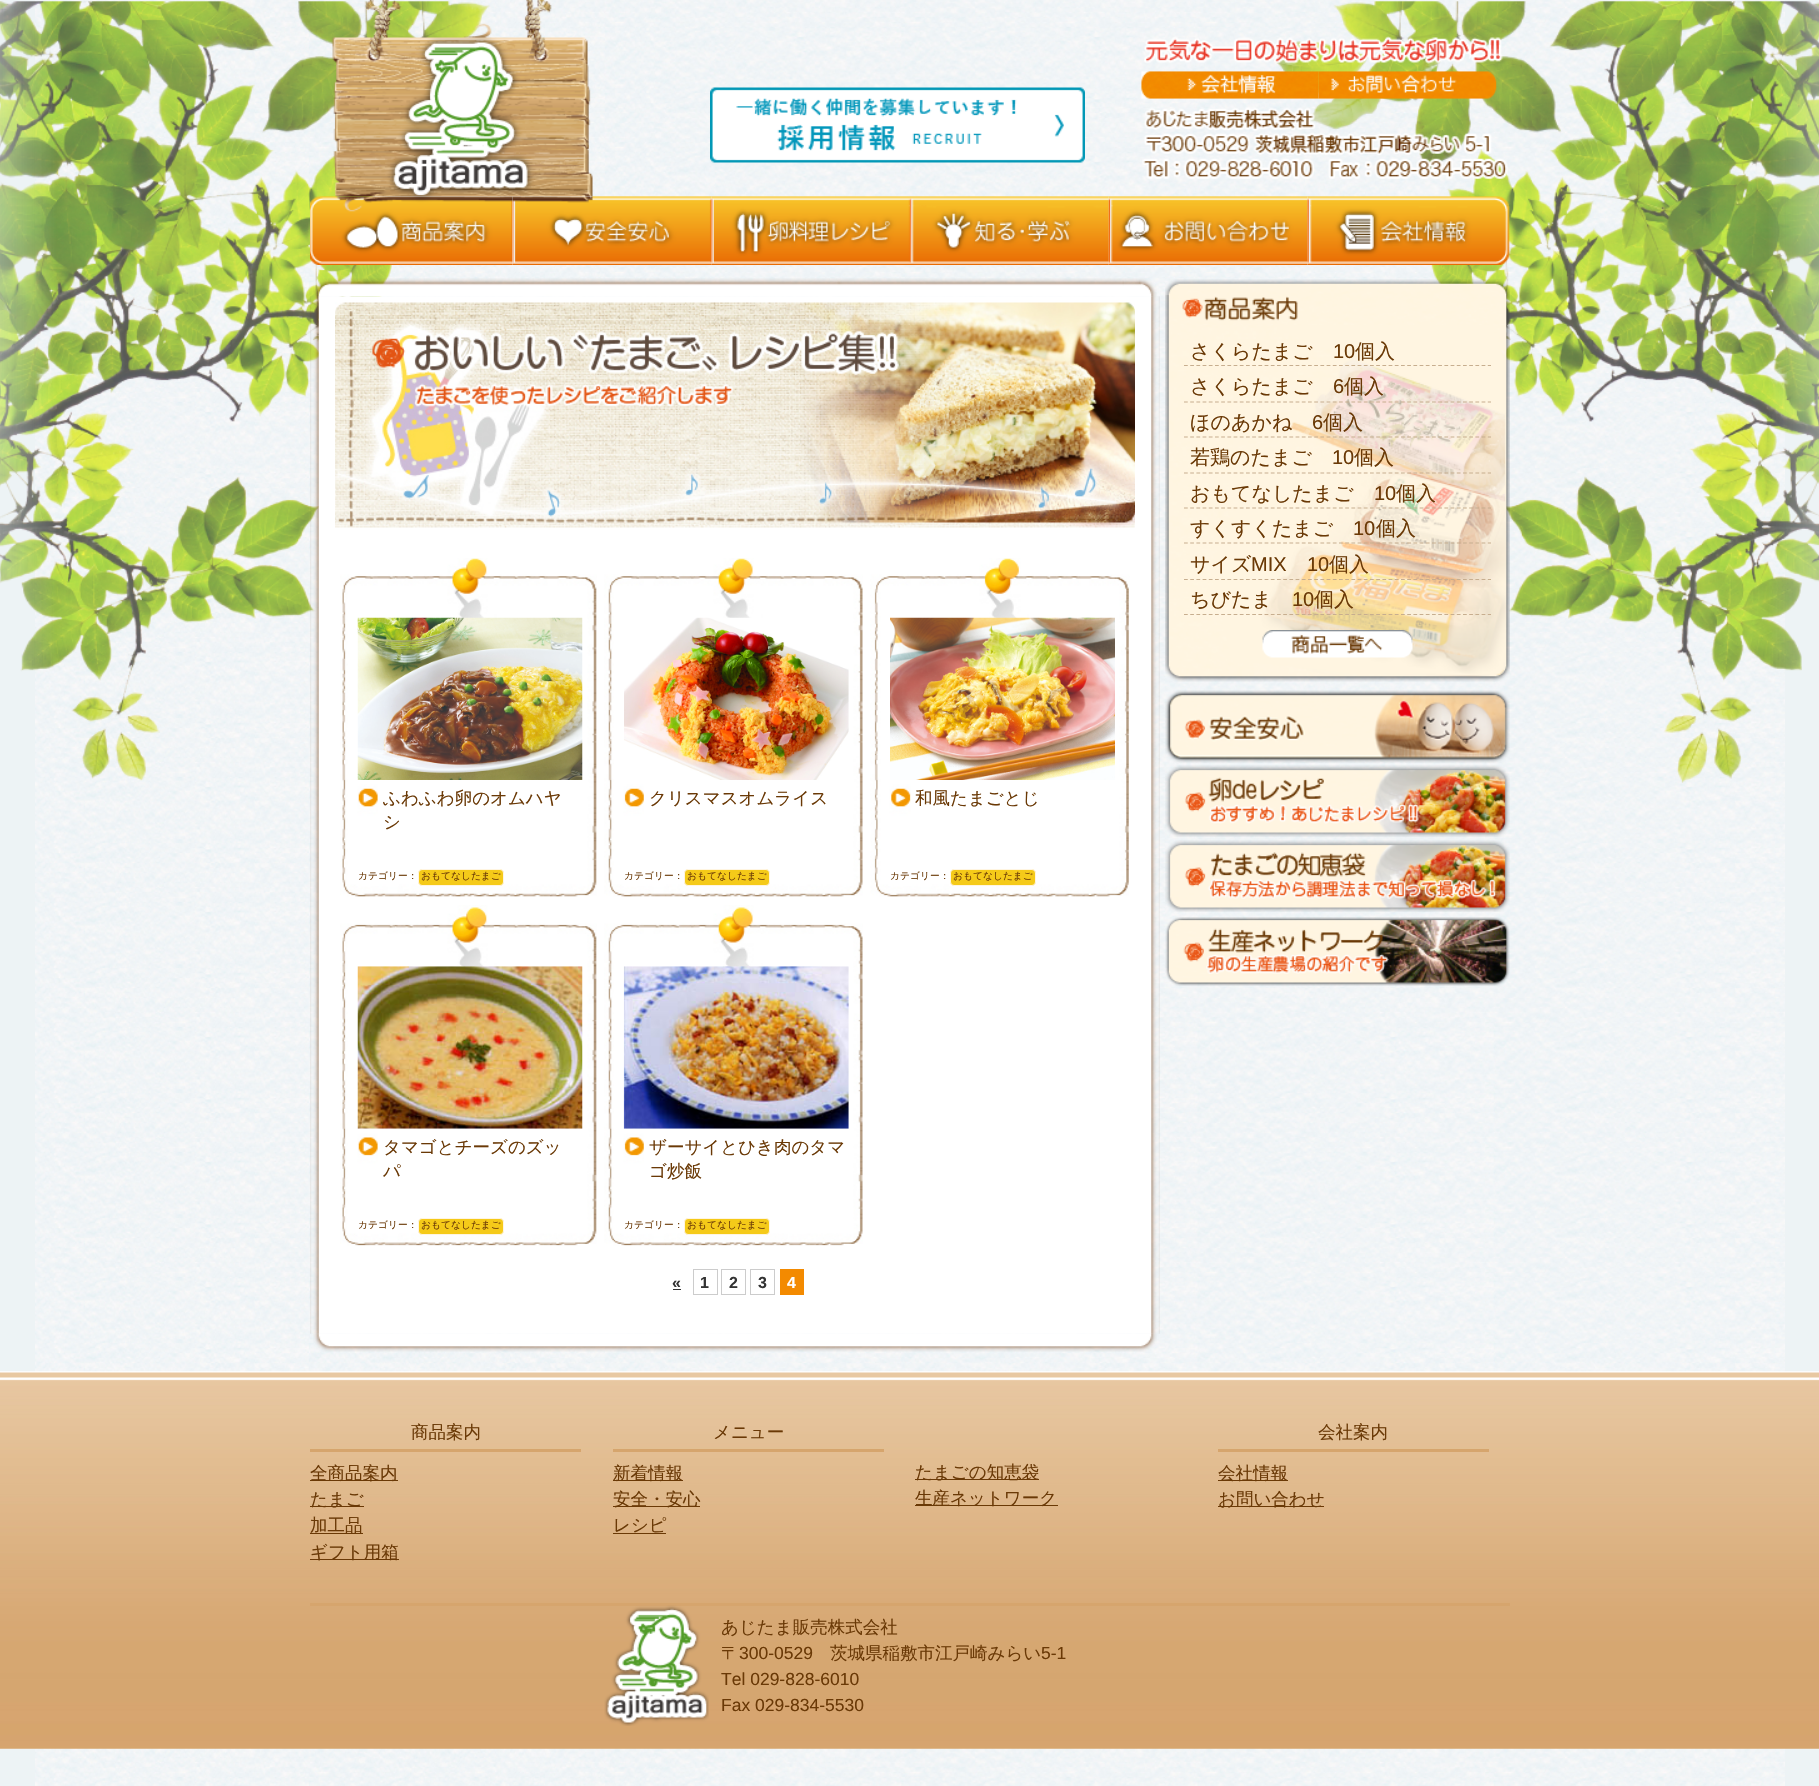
void draw(SkCanvas* canvas) {
	SkPaint paint;
	paint.setAntiAlias(true);
	auto svgPath = [&](const char* data, bool evenOdd = false) {
		SkPath result = *SkParsePath::FromSVGString(data);
		if (evenOdd) result.setFillType(SkPathFillType::kEvenOdd);
		return result;
	};
	canvas->clear(0xffedf3f5);
	canvas->drawImageRect(SkImages::DeferredFromEncodedData(SkData::MakeFromFileName("img1.png")), SkRect::MakeXYWH(35, 0, 1750, 1786), SkSamplingOptions());
	canvas->drawImageRect(SkImages::DeferredFromEncodedData(SkData::MakeFromFileName("img2.png")), SkRect::MakeXYWH(0, 1, 1819, 782), SkSamplingOptions());
	canvas->drawImageRect(SkImages::DeferredFromEncodedData(SkData::MakeFromFileName("img9.png")), SkRect::MakeXYWH(310, 196, 203, 69), SkSamplingOptions());
	canvas->drawImageRect(SkImages::DeferredFromEncodedData(SkData::MakeFromFileName("img10.png")), SkRect::MakeXYWH(512, 196, 200, 69), SkSamplingOptions());
	canvas->drawImageRect(SkImages::DeferredFromEncodedData(SkData::MakeFromFileName("img3.png")), SkRect::MakeXYWH(332, 0, 261, 197), SkSamplingOptions());
	canvas->drawImageRect(SkImages::DeferredFromEncodedData(SkData::MakeFromFileName("img4.png")), SkRect::MakeXYWH(710, 87, 375, 76), SkSamplingOptions());
	canvas->drawImageRect(SkImages::DeferredFromEncodedData(SkData::MakeFromFileName("img5.png")), SkRect::MakeXYWH(1144, 36, 359, 28), SkSamplingOptions());
	canvas->drawImageRect(SkImages::DeferredFromEncodedData(SkData::MakeFromFileName("img6.png")), SkRect::MakeXYWH(1141, 71, 178, 28), SkSamplingOptions());
	canvas->drawImageRect(SkImages::DeferredFromEncodedData(SkData::MakeFromFileName("img7.png")), SkRect::MakeXYWH(1318, 71, 179, 28), SkSamplingOptions());
	canvas->drawImageRect(SkImages::DeferredFromEncodedData(SkData::MakeFromFileName("img8.png")), SkRect::MakeXYWH(1142, 107, 366, 72), SkSamplingOptions());
	canvas->drawImageRect(SkImages::DeferredFromEncodedData(SkData::MakeFromFileName("img11.png")), SkRect::MakeXYWH(711, 196, 199, 69), SkSamplingOptions());
	canvas->drawImageRect(SkImages::DeferredFromEncodedData(SkData::MakeFromFileName("img12.png")), SkRect::MakeXYWH(910, 196, 199, 69), SkSamplingOptions());
	canvas->drawImageRect(SkImages::DeferredFromEncodedData(SkData::MakeFromFileName("img13.png")), SkRect::MakeXYWH(1108, 196, 200, 69), SkSamplingOptions());
	canvas->drawImageRect(SkImages::DeferredFromEncodedData(SkData::MakeFromFileName("img14.png")), SkRect::MakeXYWH(1307, 196, 203, 69), SkSamplingOptions());
	canvas->drawImageRect(SkImages::DeferredFromEncodedData(SkData::MakeFromFileName("img15.png")), SkRect::MakeXYWH(1165, 279, 345, 46), SkSamplingOptions());
	canvas->drawImageRect(SkImages::DeferredFromEncodedData(SkData::MakeFromFileName("img16.png")), SkRect::MakeXYWH(1165, 325, 345, 357), SkSamplingOptions());
	paint.setStroke(true);
	paint.setStrokeWidth(1.2);
	paint.setColor(0xffc7ae8f);
	paint.setPathEffect(SkDashPathEffect::Make({{3.75f, 2.45f}}, 0));
	canvas->drawPath(svgPath("M1184 365.5H1491"), paint);
	paint.setPathEffect(nullptr);
	SkFont f1(fontMgr->matchFamilyStyle("WenQuanYi Zen Hei", SkFontStyle(500, SkFontStyle::kNormal_Width, SkFontStyle::kUpright_Slant)), 20);
	f1.setSubpixel(true);
	paint.setStroke(false);
	paint.setColor(0xff6a3906);
	canvas->drawString("さくらたまご", 1190, 358, f1, paint);
	SkFont f2(fontMgr->matchFamilyStyle("Liberation Sans", SkFontStyle::Normal()), 20);
	f2.setSubpixel(true);
	canvas->drawString("10", 1333, 358, f2, paint);
	canvas->drawString("個入", 1355, 358, f1, paint);
	paint.setStroke(true);
	paint.setColor(0xffc7ae8f);
	paint.setPathEffect(SkDashPathEffect::Make({{3.75f, 2.45f}}, 0));
	canvas->drawPath(svgPath("M1184 402H1491"), paint);
	paint.setPathEffect(nullptr);
	paint.setStroke(false);
	paint.setColor(0xff6a3906);
	canvas->drawString("さくらたまご", 1190, 393, f1, paint);
	canvas->drawString("6", 1333, 393, f2, paint);
	canvas->drawString("個入", 1344, 393, f1, paint);
	paint.setStroke(true);
	paint.setColor(0xffc7ae8f);
	paint.setPathEffect(SkDashPathEffect::Make({{3.75f, 2.45f}}, 0));
	canvas->drawPath(svgPath("M1184 437H1491"), paint);
	paint.setPathEffect(nullptr);
	paint.setStroke(false);
	paint.setColor(0xff6a3906);
	canvas->drawString("ほのあかね", 1190, 429, f1, paint);
	canvas->drawString("6", 1312, 429, f2, paint);
	canvas->drawString("個入", 1323, 429, f1, paint);
	paint.setStroke(true);
	paint.setColor(0xffc7ae8f);
	paint.setPathEffect(SkDashPathEffect::Make({{3.75f, 2.45f}}, 0));
	canvas->drawPath(svgPath("M1184 473H1491"), paint);
	paint.setPathEffect(nullptr);
	paint.setStroke(false);
	paint.setColor(0xff6a3906);
	canvas->drawString("若鶏のたまご", 1190, 464, f1, paint);
	canvas->drawString("10", 1332, 464, f2, paint);
	canvas->drawString("個入", 1354, 464, f1, paint);
	paint.setStroke(true);
	paint.setColor(0xffc7ae8f);
	paint.setPathEffect(SkDashPathEffect::Make({{3.75f, 2.45f}}, 0));
	canvas->drawPath(svgPath("M1184 508H1491"), paint);
	paint.setPathEffect(nullptr);
	paint.setStroke(false);
	paint.setColor(0xff6a3906);
	canvas->drawString("おもてなしたまご", 1190, 500, f1, paint);
	canvas->drawString("10", 1374, 500, f2, paint);
	canvas->drawString("個入", 1396, 500, f1, paint);
	paint.setStroke(true);
	paint.setColor(0xffc7ae8f);
	paint.setPathEffect(SkDashPathEffect::Make({{3.75f, 2.45f}}, 0));
	canvas->drawPath(svgPath("M1184 543H1491"), paint);
	paint.setPathEffect(nullptr);
	paint.setStroke(false);
	paint.setColor(0xff6a3906);
	canvas->drawString("すくすくたまご", 1190, 535, f1, paint);
	canvas->drawString("10", 1353, 535, f2, paint);
	canvas->drawString("個入", 1376, 535, f1, paint);
	paint.setStroke(true);
	paint.setColor(0xffc7ae8f);
	paint.setPathEffect(SkDashPathEffect::Make({{3.75f, 2.45f}}, 0));
	canvas->drawPath(svgPath("M1184 579.5H1491"), paint);
	paint.setPathEffect(nullptr);
	paint.setStroke(false);
	paint.setColor(0xff6a3906);
	canvas->drawString("サイズ", 1190, 571, f1, paint);
	canvas->drawString("MIX", 1251, 571, f2, paint);
	canvas->drawString("10", 1307, 571, f2, paint);
	canvas->drawString("個入", 1329, 571, f1, paint);
	paint.setStroke(true);
	paint.setColor(0xffc7ae8f);
	paint.setPathEffect(SkDashPathEffect::Make({{3.75f, 2.45f}}, 0));
	canvas->drawPath(svgPath("M1184 614.5H1491"), paint);
	paint.setPathEffect(nullptr);
	paint.setStroke(false);
	paint.setColor(0xff6a3906);
	canvas->drawString("ちびたま", 1190, 606, f1, paint);
	canvas->drawString("10", 1292, 606, f2, paint);
	canvas->drawString("個入", 1314, 606, f1, paint);
	canvas->drawImageRect(SkImages::DeferredFromEncodedData(SkData::MakeFromFileName("img17.png")), SkRect::MakeXYWH(1262, 630, 151, 28), SkSamplingOptions());
	canvas->drawImageRect(SkImages::DeferredFromEncodedData(SkData::MakeFromFileName("img18.png")), SkRect::MakeXYWH(1165, 690, 345, 73), SkSamplingOptions());
	canvas->drawImageRect(SkImages::DeferredFromEncodedData(SkData::MakeFromFileName("img19.png")), SkRect::MakeXYWH(1165, 765, 345, 72), SkSamplingOptions());
	canvas->drawImageRect(SkImages::DeferredFromEncodedData(SkData::MakeFromFileName("img20.png")), SkRect::MakeXYWH(1165, 840, 345, 72), SkSamplingOptions());
	canvas->drawImageRect(SkImages::DeferredFromEncodedData(SkData::MakeFromFileName("img21.png")), SkRect::MakeXYWH(1165, 917, 345, 69), SkSamplingOptions());
	canvas->drawImageRect(SkImages::DeferredFromEncodedData(SkData::MakeFromFileName("img22.png")), SkRect::MakeXYWH(313, 278, 844, 19), SkSamplingOptions());
	canvas->drawImageRect(SkImages::DeferredFromEncodedData(SkData::MakeFromFileName("img23.png")), SkRect::MakeXYWH(313, 1333, 844, 19), SkSamplingOptions());
	canvas->drawImageRect(SkImages::DeferredFromEncodedData(SkData::MakeFromFileName("img24.png")), SkRect::MakeXYWH(310, 296, 850, 1038), SkSamplingOptions());
	canvas->drawImageRect(SkImages::DeferredFromEncodedData(SkData::MakeFromFileName("img25.png")), SkRect::MakeXYWH(335, 302, 800, 226), SkSamplingOptions());
	canvas->drawImageRect(SkImages::DeferredFromEncodedData(SkData::MakeFromFileName("img26.png")), SkRect::MakeXYWH(340, 558, 257, 339), SkSamplingOptions());
	canvas->drawImageRect(SkImages::DeferredFromEncodedData(SkData::MakeFromFileName("img27.png")), SkRect::MakeXYWH(357, 617, 226, 163), SkSamplingOptions());
	SkFont f3(fontMgr->matchFamilyStyle("WenQuanYi Zen Hei", SkFontStyle(500, SkFontStyle::kNormal_Width, SkFontStyle::kUpright_Slant)), 17.5);
	f3.setSubpixel(true);
	canvas->drawString("ふわふわ卵のオムハヤ", 383, 804, f3, paint);
	canvas->drawString("シ", 383, 828, f3, paint);
	SkFont f4(fontMgr->matchFamilyStyle("WenQuanYi Zen Hei", SkFontStyle(500, SkFontStyle::kNormal_Width, SkFontStyle::kUpright_Slant)), 9.75);
	f4.setSubpixel(true);
	canvas->drawString("カテゴリー：", 358, 879, f4, paint);
	paint.setColor(0xfff5ca19);
	canvas->drawRoundRect(SkRect::MakeXYWH(418.5, 869.5, 85, 16), 3.5, 3.5, paint);
	paint.setStroke(true);
	paint.setStrokeWidth(1);
	paint.setColor(0xfffff5e1);
	canvas->drawRoundRect(SkRect::MakeXYWH(418.5, 869.5, 85, 16), 3.5, 3.5, paint);
	paint.setStroke(false);
	paint.setColor(0xff6a3906);
	canvas->drawString("おもてなしたまご", 421, 879, f4, paint);
	canvas->drawImageRect(SkImages::DeferredFromEncodedData(SkData::MakeFromFileName("img28.png")), SkRect::MakeXYWH(604, 558, 259, 339), SkSamplingOptions());
	canvas->drawImageRect(SkImages::DeferredFromEncodedData(SkData::MakeFromFileName("img29.png")), SkRect::MakeXYWH(624, 617, 225, 163), SkSamplingOptions());
	canvas->drawString("クリスマスオムライス", 649, 804, f3, paint);
	canvas->drawString("カテゴリー：", 624, 879, f4, paint);
	paint.setColor(0xfff5ca19);
	canvas->drawRoundRect(SkRect::MakeXYWH(684.5, 869.5, 85, 16), 3.5, 3.5, paint);
	paint.setStroke(true);
	paint.setColor(0xfffff5e1);
	canvas->drawRoundRect(SkRect::MakeXYWH(684.5, 869.5, 85, 16), 3.5, 3.5, paint);
	paint.setStroke(false);
	paint.setColor(0xff6a3906);
	canvas->drawString("おもてなしたまご", 687, 879, f4, paint);
	canvas->drawImageRect(SkImages::DeferredFromEncodedData(SkData::MakeFromFileName("img30.png")), SkRect::MakeXYWH(870, 558, 260, 339), SkSamplingOptions());
	canvas->drawImageRect(SkImages::DeferredFromEncodedData(SkData::MakeFromFileName("img31.png")), SkRect::MakeXYWH(890, 617, 225, 163), SkSamplingOptions());
	canvas->drawString("和風たまごとじ", 915, 804, f3, paint);
	canvas->drawString("カテゴリー：", 890, 879, f4, paint);
	paint.setColor(0xfff5ca19);
	canvas->drawRoundRect(SkRect::MakeXYWH(950.5, 869.5, 85, 16), 3.5, 3.5, paint);
	paint.setStroke(true);
	paint.setColor(0xfffff5e1);
	canvas->drawRoundRect(SkRect::MakeXYWH(950.5, 869.5, 85, 16), 3.5, 3.5, paint);
	paint.setStroke(false);
	paint.setColor(0xff6a3906);
	canvas->drawString("おもてなしたまご", 953, 879, f4, paint);
	canvas->drawImageRect(SkImages::DeferredFromEncodedData(SkData::MakeFromFileName("img32.png")), SkRect::MakeXYWH(340, 905, 257, 341), SkSamplingOptions());
	canvas->drawImageRect(SkImages::DeferredFromEncodedData(SkData::MakeFromFileName("img33.png")), SkRect::MakeXYWH(357, 966, 226, 163), SkSamplingOptions());
	canvas->drawString("タマゴとチーズのズッ", 383, 1153, f3, paint);
	canvas->drawString("パ", 383, 1177, f3, paint);
	canvas->drawString("カテゴリー：", 358, 1228, f4, paint);
	paint.setColor(0xfff5ca19);
	canvas->drawRoundRect(SkRect::MakeXYWH(418.5, 1218.5, 85, 16), 3.5, 3.5, paint);
	paint.setStroke(true);
	paint.setColor(0xfffff5e1);
	canvas->drawRoundRect(SkRect::MakeXYWH(418.5, 1218.5, 85, 16), 3.5, 3.5, paint);
	paint.setStroke(false);
	paint.setColor(0xff6a3906);
	canvas->drawString("おもてなしたまご", 421, 1228, f4, paint);
	canvas->drawImageRect(SkImages::DeferredFromEncodedData(SkData::MakeFromFileName("img34.png")), SkRect::MakeXYWH(604, 905, 259, 341), SkSamplingOptions());
	canvas->drawImageRect(SkImages::DeferredFromEncodedData(SkData::MakeFromFileName("img35.png")), SkRect::MakeXYWH(623, 966, 226, 163), SkSamplingOptions());
	canvas->drawString("ザーサイとひき肉のタマ", 649, 1153, f3, paint);
	canvas->drawString("ゴ炒飯", 649, 1177, f3, paint);
	canvas->drawString("カテゴリー：", 624, 1228, f4, paint);
	paint.setColor(0xfff5ca19);
	canvas->drawRoundRect(SkRect::MakeXYWH(684.5, 1218.5, 85, 16), 3.5, 3.5, paint);
	paint.setStroke(true);
	paint.setColor(0xfffff5e1);
	canvas->drawRoundRect(SkRect::MakeXYWH(684.5, 1218.5, 85, 16), 3.5, 3.5, paint);
	paint.setStroke(false);
	paint.setColor(0xff6a3906);
	canvas->drawString("おもてなしたまご", 687, 1228, f4, paint);
	SkFont f5(fontMgr->matchFamilyStyle("Liberation Sans", SkFontStyle::Bold()), 16);
	f5.setSubpixel(true);
	paint.setColor(0xff333333);
	canvas->drawString("«", 672, 1288, f5, paint);
	canvas->drawRect(SkRect::MakeXYWH(673, 1289, 8, 1), paint);
	paint.setStroke(true);
	paint.setColor(0xffcccccc);
	canvas->drawRect(SkRect::MakeXYWH(693.5, 1269.5, 24, 25), paint);
	paint.setStroke(false);
	paint.setColor(0xff333333);
	canvas->drawString("1", 700, 1288, f5, paint);
	paint.setStroke(true);
	paint.setColor(0xffcccccc);
	canvas->drawRect(SkRect::MakeXYWH(721.5, 1269.5, 24, 25), paint);
	paint.setStroke(false);
	paint.setColor(0xff333333);
	canvas->drawString("2", 729, 1288, f5, paint);
	paint.setStroke(true);
	paint.setColor(0xffcccccc);
	canvas->drawRect(SkRect::MakeXYWH(750.5, 1269.5, 24, 25), paint);
	paint.setStroke(false);
	paint.setColor(0xff333333);
	canvas->drawString("3", 758, 1288, f5, paint);
	paint.setColor(0xfff38a00);
	canvas->drawRect(SkRect::MakeXYWH(780, 1269, 24, 26), paint);
	paint.setColor(0xffffffff);
	canvas->drawString("4", 787, 1288, f5, paint);
	canvas->drawImageRect(SkImages::DeferredFromEncodedData(SkData::MakeFromFileName("img36.png")), SkRect::MakeXYWH(0, 1371, 1819, 378), SkSamplingOptions());
	paint.setColor(0xffd6a56d);
	canvas->drawRect(SkRect::MakeXYWH(310, 1603, 1200, 3), paint);
	canvas->drawRect(SkRect::MakeXYWH(310, 1449, 271, 3), paint);
	paint.setColor(0xff6a3906);
	canvas->drawString("商品案内", 411, 1438, f3, paint);
	canvas->drawRect(SkRect::MakeXYWH(310, 1480, 88, 1), paint);
	canvas->drawString("全商品案内", 310, 1479, f3, paint);
	canvas->drawRect(SkRect::MakeXYWH(310, 1506, 54, 1), paint);
	canvas->drawString("たまご", 310, 1505, f3, paint);
	canvas->drawRect(SkRect::MakeXYWH(310, 1533, 53, 1), paint);
	canvas->drawString("加工品", 310, 1531, f3, paint);
	canvas->drawRect(SkRect::MakeXYWH(310, 1559, 89, 1), paint);
	canvas->drawString("ギフト用箱", 310, 1558, f3, paint);
	paint.setColor(0xffd6a56d);
	canvas->drawRect(SkRect::MakeXYWH(613, 1449, 271, 3), paint);
	paint.setColor(0xff6a3906);
	canvas->drawString("メニュー", 713, 1438, f3, paint);
	canvas->drawRect(SkRect::MakeXYWH(613, 1480, 70, 1), paint);
	canvas->drawString("新着情報", 613, 1479, f3, paint);
	canvas->drawRect(SkRect::MakeXYWH(613, 1506, 87, 1), paint);
	canvas->drawString("安全・安心", 613, 1505, f3, paint);
	canvas->drawString("レシピ", 613, 1531, f3, paint);
	canvas->drawRect(SkRect::MakeXYWH(613, 1533, 53, 1), paint);
	canvas->drawRect(SkRect::MakeXYWH(915, 1479, 124, 1), paint);
	canvas->drawString("たまごの知恵袋", 915, 1478, f3, paint);
	canvas->drawRect(SkRect::MakeXYWH(915, 1505, 143, 1), paint);
	canvas->drawString("生産ネットワーク", 915, 1504, f3, paint);
	paint.setColor(0xffd6a56d);
	canvas->drawRect(SkRect::MakeXYWH(1218, 1449, 271, 3), paint);
	paint.setColor(0xff6a3906);
	canvas->drawString("会社案内", 1318, 1438, f3, paint);
	canvas->drawRect(SkRect::MakeXYWH(1218, 1480, 70, 1), paint);
	canvas->drawString("会社情報", 1218, 1479, f3, paint);
	canvas->drawRect(SkRect::MakeXYWH(1218, 1506, 106, 1), paint);
	canvas->drawString("お問い合わせ", 1218, 1505, f3, paint);
	canvas->drawImageRect(SkImages::DeferredFromEncodedData(SkData::MakeFromFileName("img37.png")), SkRect::MakeXYWH(604, 1605, 105, 121), SkSamplingOptions());
	canvas->drawString("あじたま販売株式会社", 721, 1633, f3, paint);
	canvas->drawString("〒", 721, 1659, f3, paint);
	SkFont f6(fontMgr->matchFamilyStyle("Liberation Sans", SkFontStyle::Normal()), 17.5);
	f6.setSubpixel(true);
	canvas->drawString("300-0529", 739, 1659, f6, paint);
	canvas->drawString("茨城県稲敷市江戸崎みらい", 830, 1659, f3, paint);
	canvas->drawString("5-1", 1041, 1659, f6, paint);
	canvas->drawString("Tel 029-828-6010", 721, 1685, f6, paint);
	canvas->drawString("Fax 029-834-5530", 721, 1711, f6, paint);
}
